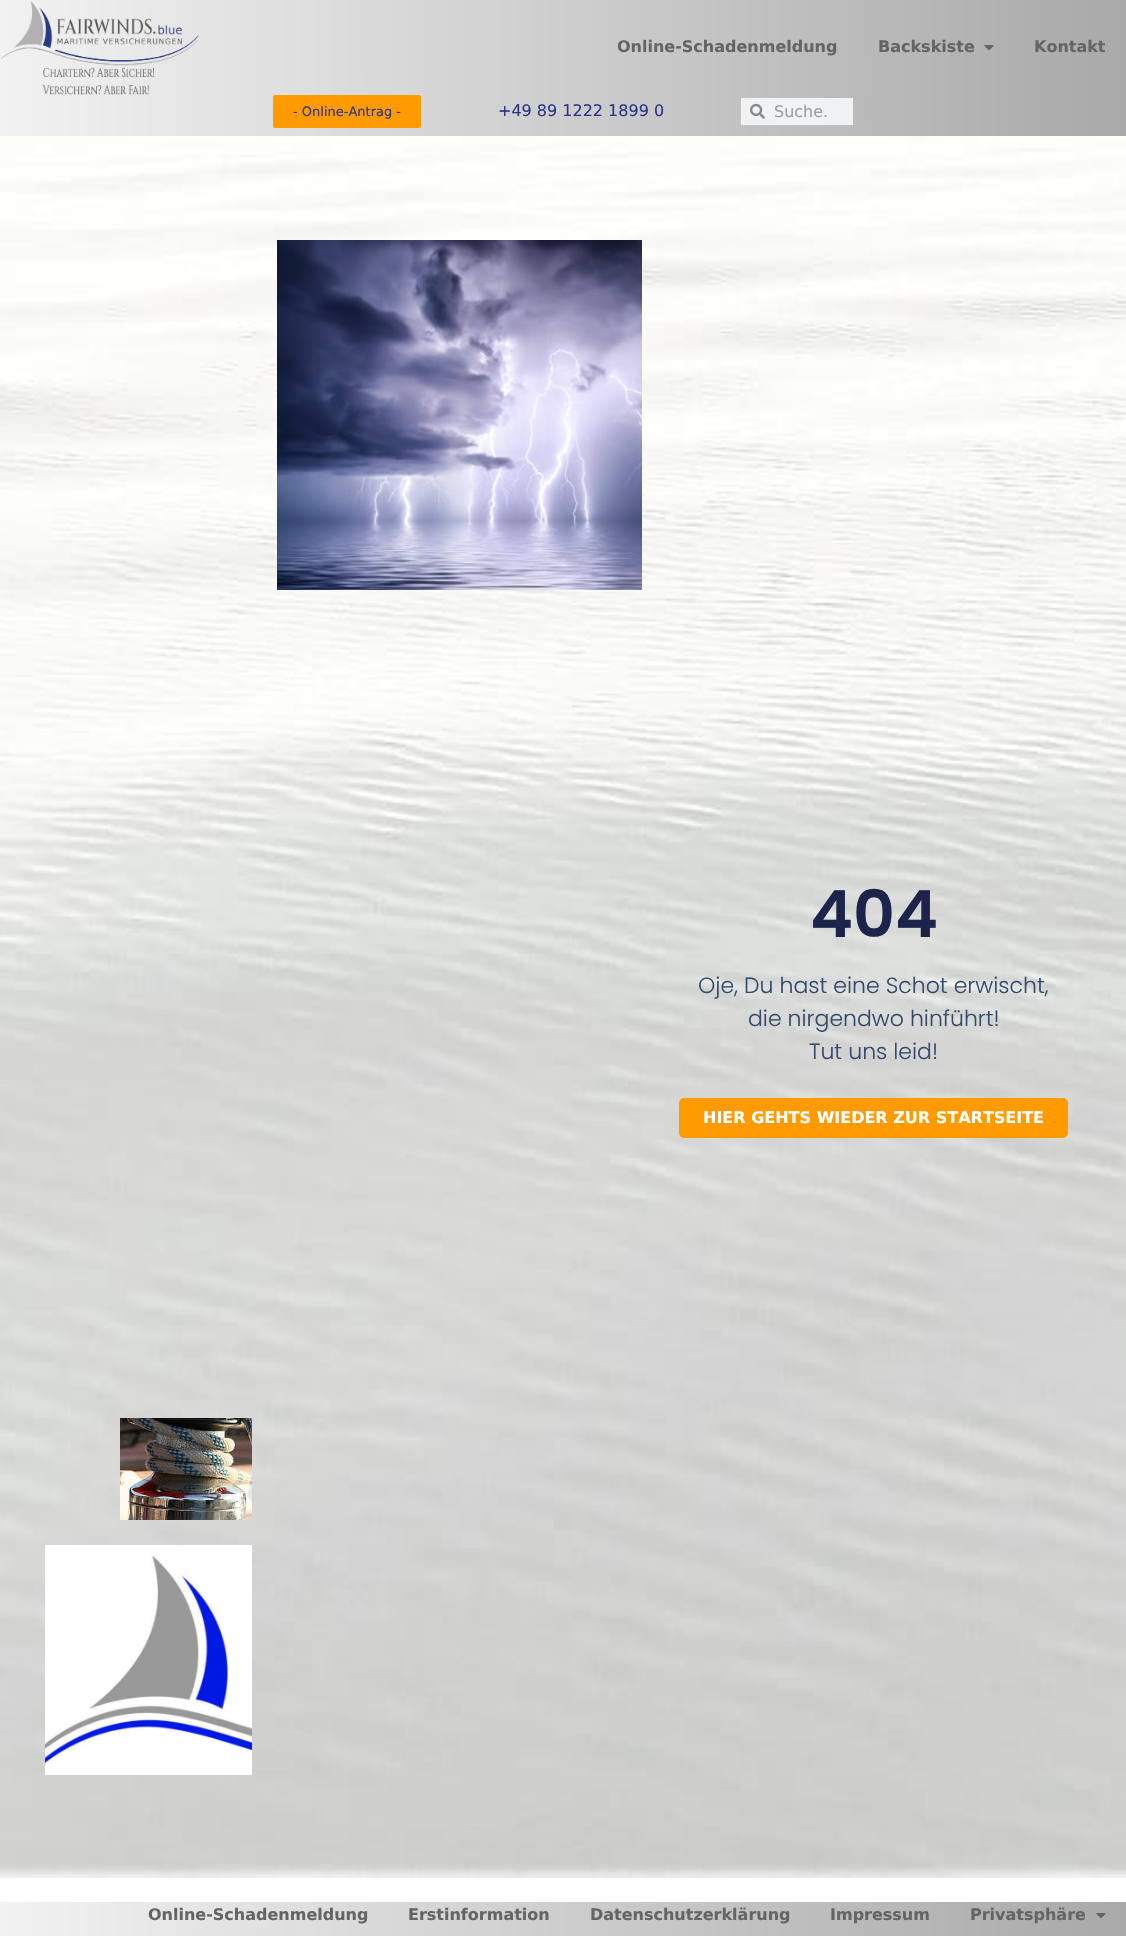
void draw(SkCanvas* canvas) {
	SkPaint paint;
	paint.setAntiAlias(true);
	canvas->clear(0xffffffff);
	{
		const SkColor colors[] = {0xfff2f2f2, 0xffa9a9a9};
		const float stops[] = {0, 1};
		const SkPoint ends[] = {{0, 48}, {1126, 47}};
		paint.setShader(SkGradientShader::MakeLinear(ends, colors, stops, 2, SkTileMode::kClamp));
		paint.setAlpha(255);
	}
	canvas->drawRect(SkRect::MakeXYWH(0, 0, 1126, 95), paint);
	canvas->drawImageRect(SkImages::DeferredFromEncodedData(SkData::MakeFromFileName("img1.png")), SkRect::MakeXYWH(1, 1, 198, 94), SkSamplingOptions());
	SkFont f1(fontMgr->matchFamilyStyle("DejaVu Sans", SkFontStyle::Bold()), 16);
	f1.setSubpixel(true);
	paint.setShader(nullptr);
	paint.setColor(0xff646464);
	canvas->drawString("Online-Schadenmeldung", 617, 52, f1, paint);
	canvas->drawString("Backskiste", 878, 52, f1, paint);
	canvas->drawImageRect(SkImages::DeferredFromEncodedData(SkData::MakeFromFileName("img2.png")), SkRect::MakeXYWH(984, 45, 10, 6), SkSamplingOptions());
	canvas->drawString("Kontakt", 1034, 52, f1, paint);
	{
		const SkColor colors[] = {0xfff2f2f2, 0xffa9a9a9};
		const float stops[] = {0, 1};
		const SkPoint ends[] = {{0, 116}, {1126, 115}};
		paint.setShader(SkGradientShader::MakeLinear(ends, colors, stops, 2, SkTileMode::kClamp));
		paint.setAlpha(255);
	}
	canvas->drawRect(SkRect::MakeXYWH(0, 95, 1126, 41), paint);
	paint.setShader(nullptr);
	paint.setColor(0xffff9a00);
	canvas->drawRoundRect(SkRect::MakeXYWH(273, 95, 148, 33), 2, 2, paint);
	SkFont f2(fontMgr->matchFamilyStyle("DejaVu Sans", SkFontStyle::Normal()), 13);
	f2.setSubpixel(true);
	paint.setColor(0xff283583);
	canvas->drawString("- Online-Antrag -", 293, 116, f2, paint);
	SkFont f3(fontMgr->matchFamilyStyle("DejaVu Sans", SkFontStyle::Normal()), 16);
	f3.setSubpixel(true);
	canvas->drawString("+49 89 1222 1899 0", 498, 116, f3, paint);
	paint.setColor(0xfff1f2f3);
	canvas->drawRect(SkRect::MakeXYWH(741, 98, 112, 27), paint);
	canvas->drawImageRect(SkImages::DeferredFromEncodedData(SkData::MakeFromFileName("img3.png")), SkRect::MakeXYWH(750, 103, 15, 16), SkSamplingOptions());
	paint.setColor(0xff9c9d9d);
	canvas->drawString("Suche.", 774, 117, f3, paint);
	canvas->drawImageRect(SkImages::DeferredFromEncodedData(SkData::MakeFromFileName("img4.png")), SkRect::MakeXYWH(0, 136, 1126, 1742), SkSamplingOptions());
	canvas->drawImageRect(SkImages::DeferredFromEncodedData(SkData::MakeFromFileName("img5.png")), SkRect::MakeXYWH(277, 240, 365, 350), SkSamplingOptions());
	SkFont f4(fontMgr->matchFamilyStyle("Poppins", SkFontStyle(600, SkFontStyle::kNormal_Width, SkFontStyle::kUpright_Slant)), 65);
	f4.setSubpixel(true);
	paint.setColor(0xff1c244b);
	canvas->drawString("404", 810, 937, f4, paint);
	SkFont f5(fontMgr->matchFamilyStyle("Poppins", SkFontStyle(300, SkFontStyle::kNormal_Width, SkFontStyle::kUpright_Slant)), 22);
	f5.setSubpixel(true);
	paint.setColor(0xff324a6d);
	canvas->drawString("Oje, Du hast eine Schot erwischt,", 698, 993, f5, paint);
	canvas->drawString("die nirgendwo hinführt!", 748, 1026, f5, paint);
	canvas->drawString("Tut uns leid!", 809, 1059, f5, paint);
	paint.setColor(0xffff9a00);
	canvas->drawRoundRect(SkRect::MakeXYWH(679, 1098, 389, 40), 5, 5, paint);
	paint.setColor(0xffffffff);
	canvas->drawString("HIER GEHTS WIEDER ZUR STARTSEITE", 703, 1123, f1, paint);
	canvas->drawImageRect(SkImages::DeferredFromEncodedData(SkData::MakeFromFileName("img6.png")), SkRect::MakeXYWH(120, 1418, 132, 102), SkSamplingOptions());
	canvas->drawImageRect(SkImages::DeferredFromEncodedData(SkData::MakeFromFileName("img7.png")), SkRect::MakeXYWH(45, 1545, 207, 230), SkSamplingOptions());
	{
		const SkColor colors[] = {0xfff2f2f2, 0xffa9a9a9};
		const float stops[] = {0, 1};
		const SkPoint ends[] = {{0, 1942}, {1126, 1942}};
		paint.setShader(SkGradientShader::MakeLinear(ends, colors, stops, 2, SkTileMode::kClamp));
		paint.setAlpha(255);
	}
	canvas->drawRect(SkRect::MakeXYWH(0, 1902, 1126, 34), paint);
	paint.setShader(nullptr);
	paint.setColor(0xff646464);
	canvas->drawString("Online-Schadenmeldung", 148, 1920, f1, paint);
	canvas->drawString("Erstinformation", 408, 1920, f1, paint);
	canvas->drawString("Datenschutzerklärung", 590, 1920, f1, paint);
	canvas->drawString("Impressum", 830, 1920, f1, paint);
	canvas->drawString("Privatsphäre", 970, 1920, f1, paint);
	canvas->drawImageRect(SkImages::DeferredFromEncodedData(SkData::MakeFromFileName("img8.png")), SkRect::MakeXYWH(1096, 1913, 10, 6), SkSamplingOptions());
}
